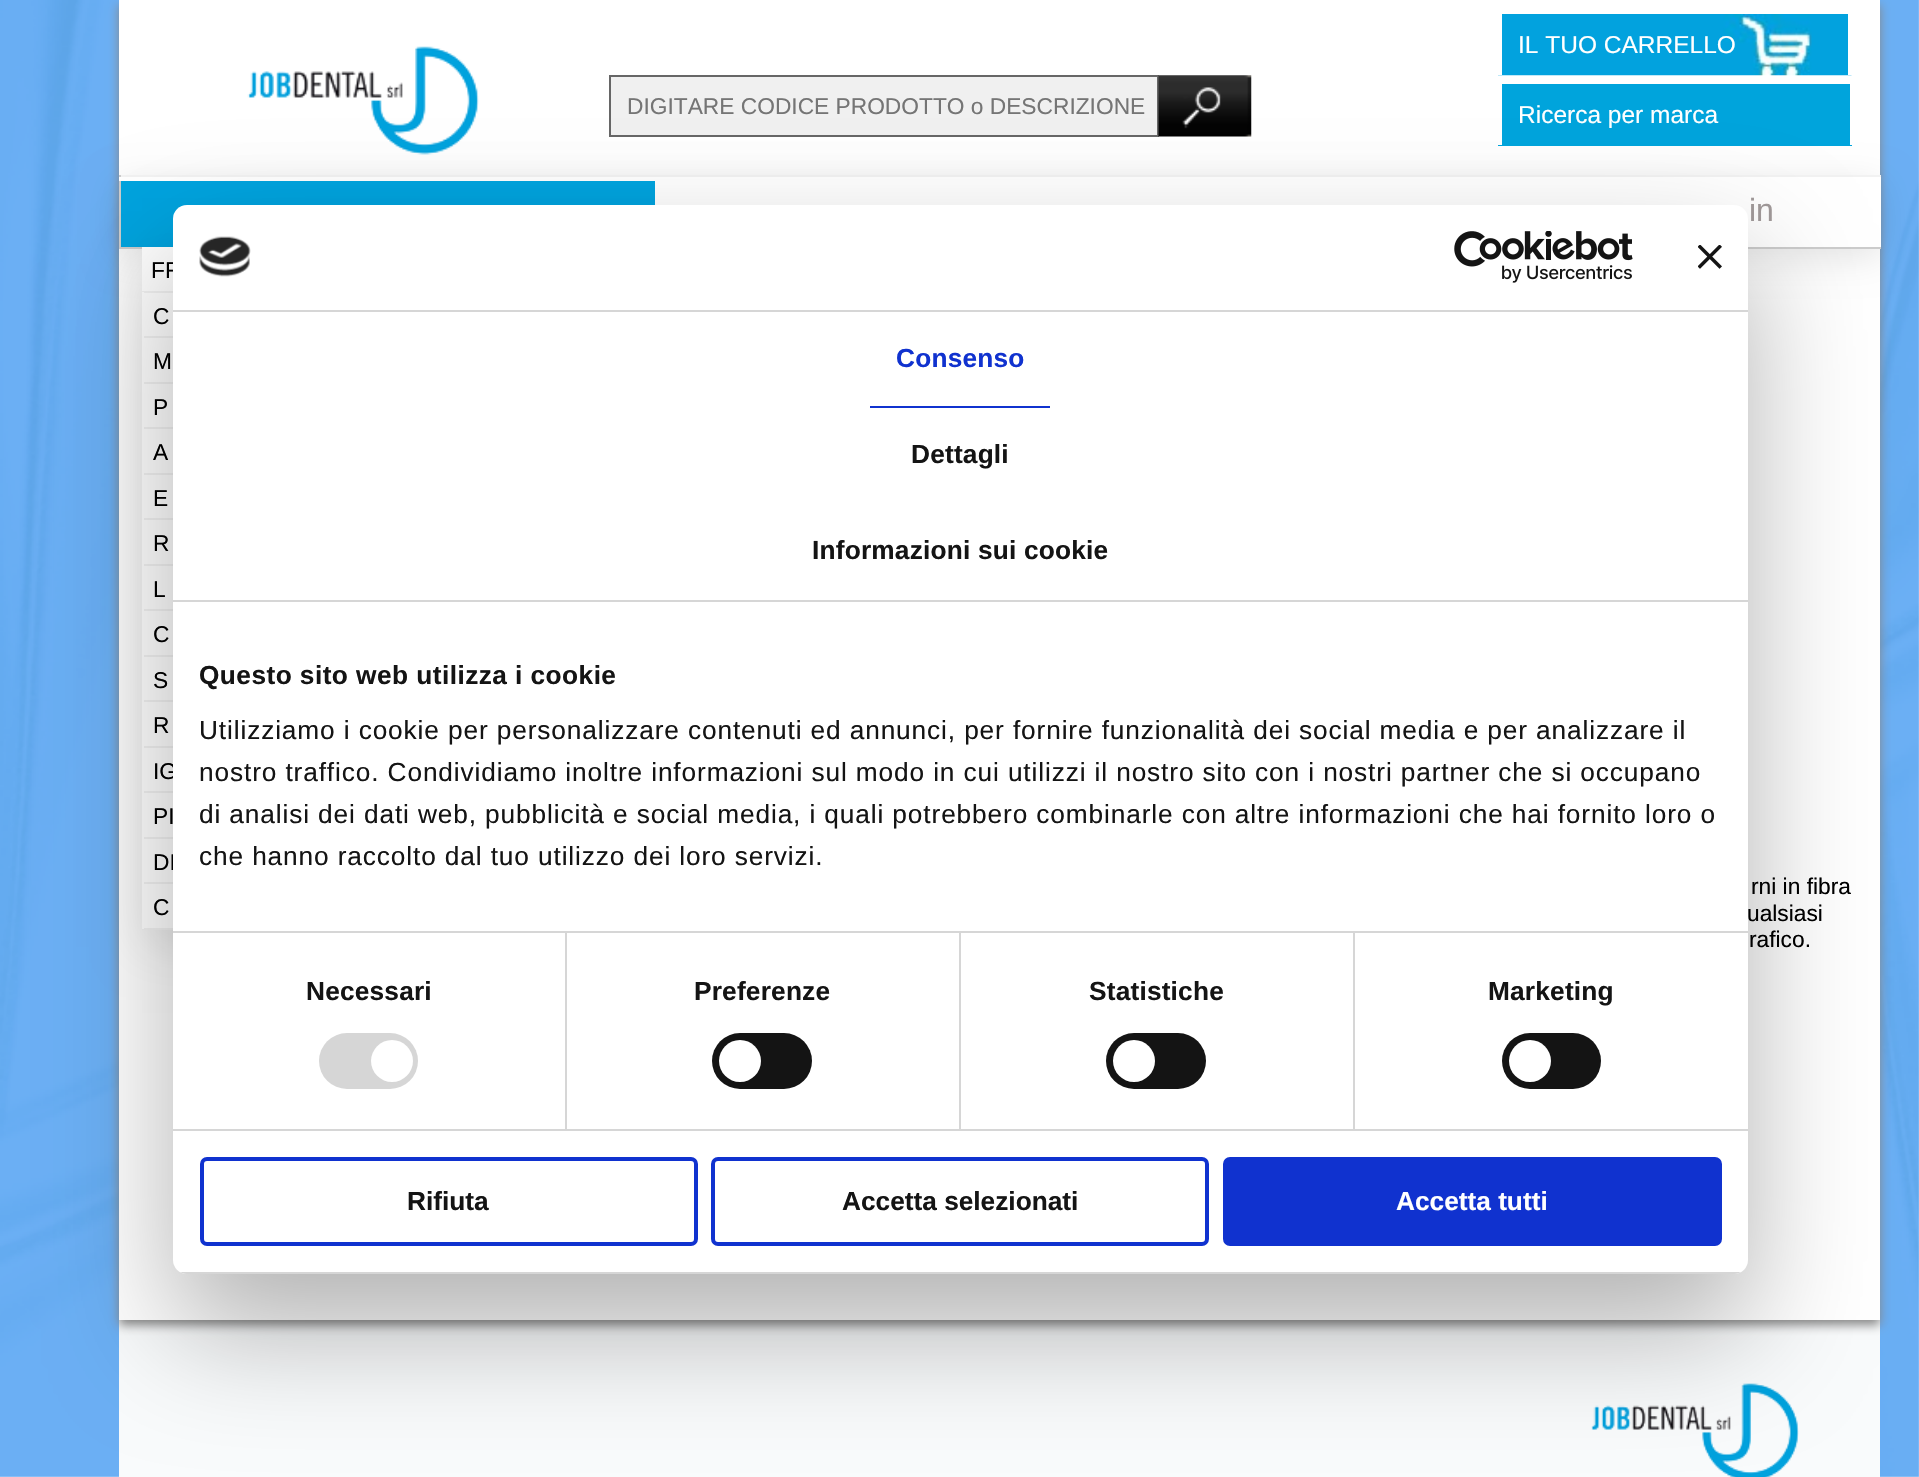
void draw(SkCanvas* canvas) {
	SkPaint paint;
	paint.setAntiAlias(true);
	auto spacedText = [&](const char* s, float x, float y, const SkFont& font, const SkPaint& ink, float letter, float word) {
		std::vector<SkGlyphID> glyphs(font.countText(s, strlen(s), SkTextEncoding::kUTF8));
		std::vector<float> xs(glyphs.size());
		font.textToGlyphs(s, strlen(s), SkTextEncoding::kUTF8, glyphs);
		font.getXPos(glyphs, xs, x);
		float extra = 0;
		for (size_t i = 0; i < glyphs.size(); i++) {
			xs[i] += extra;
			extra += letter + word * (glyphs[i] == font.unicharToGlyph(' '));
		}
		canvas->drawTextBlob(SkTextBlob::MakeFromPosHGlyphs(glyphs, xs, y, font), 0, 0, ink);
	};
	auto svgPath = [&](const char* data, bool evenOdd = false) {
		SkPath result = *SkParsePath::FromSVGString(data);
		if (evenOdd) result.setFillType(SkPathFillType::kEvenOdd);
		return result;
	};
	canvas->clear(0xffffffff);
	canvas->drawImageRect(SkImages::DeferredFromEncodedData(SkData::MakeFromFileName("img1.png")), SkRect::MakeXYWH(0, 0, 1919, 1477), SkSamplingOptions());
	paint.setColor(0xfff9fbfc);
	canvas->drawRect(SkRect::MakeXYWH(119, 1320, 1761, 157), paint);
	paint.setColor(0xff878787);
	paint.setMaskFilter(SkMaskFilter::MakeBlur(kNormal_SkBlurStyle, 5));
	canvas->drawRect(SkRect::MakeXYWH(119, 5, 1761, 1320), paint);
	paint.setMaskFilter(nullptr);
	paint.setColor(0xffffffff);
	canvas->drawRect(SkRect::MakeXYWH(119, 0, 1761, 1320), paint);
	canvas->drawImageRect(SkImages::DeferredFromEncodedData(SkData::MakeFromFileName("img2.png")), SkRect::MakeXYWH(1498, 14, 354, 62), SkSamplingOptions());
	canvas->drawRect(SkRect::MakeXYWH(1848, 14, 4, 61), paint);
	canvas->drawRect(SkRect::MakeXYWH(1498, 14, 4, 61), paint);
	SkFont f1(fontMgr->matchFamilyStyle("Liberation Sans", SkFontStyle::Normal()), 24.5);
	f1.setSubpixel(true);
	canvas->drawString("IL TUO CARRELLO", 1518, 53, f1, paint);
	paint.setColor(0x1a000000);
	paint.setMaskFilter(SkMaskFilter::MakeBlur(kNormal_SkBlurStyle, 17.5));
	canvas->drawRect(SkRect::MakeXYWH(119, 184, 1762, 73), paint);
	paint.setMaskFilter(nullptr);
	canvas->drawImageRect(SkImages::DeferredFromEncodedData(SkData::MakeFromFileName("img3.png")), SkRect::MakeXYWH(247, 46, 232, 109), SkSamplingOptions());
	paint.setColor(0xfff0f0f0);
	canvas->drawRect(SkRect::MakeXYWH(610, 76, 548, 60), paint);
	paint.setStroke(true);
	paint.setStrokeWidth(2);
	paint.setColor(0xff666666);
	canvas->drawRect(SkRect::MakeXYWH(610, 76, 548, 60), paint);
	SkFont f2(fontMgr->matchFamilyStyle("Liberation Sans", SkFontStyle::Normal()), 22.75);
	f2.setSubpixel(true);
	paint.setStroke(false);
	paint.setColor(0xff757575);
	canvas->drawString("DIGITARE CODICE PRODOTTO o DESCRIZIONE", 627, 114, f2, paint);
	canvas->drawImageRect(SkImages::DeferredFromEncodedData(SkData::MakeFromFileName("img4.png")), SkRect::MakeXYWH(1158, 75, 94, 62), SkSamplingOptions());
	paint.setColor(0xff00a4dc);
	canvas->drawRect(SkRect::MakeXYWH(1498, 84, 354, 62), paint);
	paint.setColor(0xffffffff);
	canvas->drawRect(SkRect::MakeXYWH(1850, 84, 2, 61), paint);
	canvas->drawRect(SkRect::MakeXYWH(1498, 84, 4, 61), paint);
	canvas->drawString("Ricerca per marca", 1518, 123, f1, paint);
	canvas->drawRect(SkRect::MakeXYWH(655, 177, 1226, 70), paint);
	paint.setColor(0xfff2f2f2);
	canvas->drawRect(SkRect::MakeXYWH(119, 175, 1762, 2), paint);
	paint.setColor(0xffcccccc);
	canvas->drawRect(SkRect::MakeXYWH(119, 247, 1762, 2), paint);
	canvas->drawRect(SkRect::MakeXYWH(119, 175, 2, 74), paint);
	SkFont f3(fontMgr->matchFamilyStyle("Liberation Sans", SkFontStyle::Normal()), 32);
	f3.setSubpixel(true);
	paint.setColor(0xffa19a9a);
	canvas->drawString("in", 1749, 221, f3, paint);
	paint.setColor(0xff00a3de);
	canvas->drawRect(SkRect::MakeXYWH(121, 181, 534, 66), paint);
	paint.setColor(0xffffffff);
	canvas->drawRect(SkRect::MakeXYWH(119, 177, 536, 4), paint);
	paint.setColor(0x1a000000);
	paint.setMaskFilter(SkMaskFilter::MakeBlur(kNormal_SkBlurStyle, 22));
	canvas->drawRect(SkRect::MakeXYWH(142, 264, 513, 683), paint);
	paint.setMaskFilter(nullptr);
	paint.setColor(0xffffffff);
	canvas->drawRect(SkRect::MakeXYWH(142, 247, 31, 681), paint);
	paint.setColor(0xfff2f2f2);
	canvas->drawRect(SkRect::MakeXYWH(142, 291, 31, 2), paint);
	paint.setColor(0xff000000);
	canvas->drawString("FR", 151, 278, f2, paint);
	paint.setColor(0xfff2f2f2);
	canvas->drawRect(SkRect::MakeXYWH(142, 336, 31, 2), paint);
	paint.setColor(0xffffffff);
	canvas->drawRect(SkRect::MakeXYWH(142, 292, 2, 46), paint);
	paint.setColor(0xff000000);
	canvas->drawString("C", 153, 324, f2, paint);
	paint.setColor(0xfff2f2f2);
	canvas->drawRect(SkRect::MakeXYWH(142, 382, 31, 2), paint);
	paint.setColor(0xffffffff);
	canvas->drawRect(SkRect::MakeXYWH(142, 382, 2, 1), paint);
	paint.setColor(0xff000000);
	canvas->drawString("M", 153, 369, f2, paint);
	paint.setColor(0xfff2f2f2);
	canvas->drawRect(SkRect::MakeXYWH(142, 427, 31, 2), paint);
	paint.setColor(0xffffffff);
	canvas->drawRect(SkRect::MakeXYWH(142, 383, 2, 46), paint);
	paint.setColor(0xff000000);
	canvas->drawString("P", 153, 415, f2, paint);
	paint.setColor(0xfff2f2f2);
	canvas->drawRect(SkRect::MakeXYWH(142, 473, 31, 2), paint);
	paint.setColor(0xffffffff);
	canvas->drawRect(SkRect::MakeXYWH(142, 473, 2, 1), paint);
	paint.setColor(0xff000000);
	canvas->drawString("A", 153, 460, f2, paint);
	paint.setColor(0xfff2f2f2);
	canvas->drawRect(SkRect::MakeXYWH(142, 518, 31, 2), paint);
	paint.setColor(0xffffffff);
	canvas->drawRect(SkRect::MakeXYWH(142, 474, 2, 46), paint);
	paint.setColor(0xff000000);
	canvas->drawString("E", 153, 506, f2, paint);
	paint.setColor(0xfff2f2f2);
	canvas->drawRect(SkRect::MakeXYWH(142, 564, 31, 2), paint);
	paint.setColor(0xffffffff);
	canvas->drawRect(SkRect::MakeXYWH(142, 564, 2, 1), paint);
	paint.setColor(0xff000000);
	canvas->drawString("R", 153, 551, f2, paint);
	paint.setColor(0xfff2f2f2);
	canvas->drawRect(SkRect::MakeXYWH(142, 609, 31, 2), paint);
	paint.setColor(0xffffffff);
	canvas->drawRect(SkRect::MakeXYWH(142, 565, 2, 46), paint);
	paint.setColor(0xff000000);
	canvas->drawString("L", 153, 597, f2, paint);
	paint.setColor(0xfff2f2f2);
	canvas->drawRect(SkRect::MakeXYWH(142, 655, 31, 2), paint);
	paint.setColor(0xffffffff);
	canvas->drawRect(SkRect::MakeXYWH(142, 655, 2, 1), paint);
	paint.setColor(0xff000000);
	canvas->drawString("C", 153, 642, f2, paint);
	paint.setColor(0xfff2f2f2);
	canvas->drawRect(SkRect::MakeXYWH(142, 700, 31, 2), paint);
	paint.setColor(0xffffffff);
	canvas->drawRect(SkRect::MakeXYWH(142, 656, 2, 46), paint);
	paint.setColor(0xff000000);
	canvas->drawString("S", 153, 688, f2, paint);
	paint.setColor(0xfff2f2f2);
	canvas->drawRect(SkRect::MakeXYWH(142, 746, 31, 2), paint);
	paint.setColor(0xffffffff);
	canvas->drawRect(SkRect::MakeXYWH(142, 746, 2, 1), paint);
	paint.setColor(0xff000000);
	canvas->drawString("R", 153, 733, f2, paint);
	paint.setColor(0xfff2f2f2);
	canvas->drawRect(SkRect::MakeXYWH(142, 791, 31, 2), paint);
	paint.setColor(0xffffffff);
	canvas->drawRect(SkRect::MakeXYWH(142, 747, 2, 46), paint);
	paint.setColor(0xff000000);
	canvas->drawString("IG", 153, 779, f2, paint);
	paint.setColor(0xfff2f2f2);
	canvas->drawRect(SkRect::MakeXYWH(142, 837, 31, 2), paint);
	paint.setColor(0xffffffff);
	canvas->drawRect(SkRect::MakeXYWH(142, 837, 2, 1), paint);
	paint.setColor(0xff000000);
	canvas->drawString("PI", 153, 824, f2, paint);
	paint.setColor(0xfff2f2f2);
	canvas->drawRect(SkRect::MakeXYWH(142, 882, 31, 2), paint);
	paint.setColor(0xffffffff);
	canvas->drawRect(SkRect::MakeXYWH(142, 838, 2, 46), paint);
	paint.setColor(0xff000000);
	canvas->drawString("DI", 153, 870, f2, paint);
	paint.setColor(0xfff2f2f2);
	canvas->drawRect(SkRect::MakeXYWH(142, 928, 31, 2), paint);
	paint.setColor(0xffffffff);
	canvas->drawRect(SkRect::MakeXYWH(142, 928, 2, 1), paint);
	paint.setColor(0xff000000);
	canvas->drawString("C", 153, 915, f2, paint);
	canvas->drawString("rni in fibra", 1751, 894, f2, paint);
	canvas->drawString("ualsiasi", 1747, 921, f2, paint);
	canvas->drawString("rafico.", 1749, 947, f2, paint);
	canvas->drawImageRect(SkImages::DeferredFromEncodedData(SkData::MakeFromFileName("img5.png")), SkRect::MakeXYWH(1591, 1383, 208, 94), SkSamplingOptions());
	paint.setColor(0x4d000000);
	paint.setMaskFilter(SkMaskFilter::MakeBlur(kNormal_SkBlurStyle, 59.5));
	canvas->drawRoundRect(SkRect::MakeXYWH(173, 261, 1575, 1069), 14, 14, paint);
	paint.setMaskFilter(nullptr);
	paint.setColor(0xffffffff);
	canvas->drawRoundRect(SkRect::MakeXYWH(173, 205, 1575, 1069), 14, 14, paint);
	paint.setColor(0xffd6d6d6);
	canvas->drawRect(SkRect::MakeXYWH(173, 310, 1575, 2), paint);
	canvas->drawImageRect(SkImages::DeferredFromEncodedData(SkData::MakeFromFileName("img6.png")), SkRect::MakeXYWH(199, 236, 52, 41), SkSamplingOptions());
	canvas->drawImageRect(SkImages::DeferredFromEncodedData(SkData::MakeFromFileName("img7.png")), SkRect::MakeXYWH(1454, 231, 179, 52), SkSamplingOptions());
	canvas->drawImageRect(SkImages::DeferredFromEncodedData(SkData::MakeFromFileName("img8.png")), SkRect::MakeXYWH(1698, 245, 24, 24), SkSamplingOptions());
	canvas->drawRect(SkRect::MakeXYWH(173, 600, 1575, 2), paint);
	paint.setColor(0xff1032cf);
	canvas->drawRect(SkRect::MakeXYWH(870, 406, 180, 2), paint);
	SkFont f4(fontMgr->matchFamilyStyle("Liberation Sans", SkFontStyle::Bold()), 26.25);
	f4.setSubpixel(true);
	spacedText("Consenso", 896, 367, f4, paint, 0.2, 0);
	paint.setColor(0xff141414);
	spacedText("Dettagli", 911, 463, f4, paint, 0.2, 0);
	spacedText("Informazioni sui cookie", 812, 559, f4, paint, 0.2, 0);
	paint.setColor(0xffd6d6d6);
	canvas->drawRect(SkRect::MakeXYWH(173, 931, 1575, 2), paint);
	paint.setColor(0xff141414);
	spacedText("Questo sito web utilizza i cookie", 199, 684, f4, paint, 0.45, 0);
	SkFont f5(fontMgr->matchFamilyStyle("Liberation Sans", SkFontStyle::Normal()), 26.25);
	f5.setSubpixel(true);
	spacedText("Utilizziamo i cookie per personalizzare contenuti ed annunci, per fornire funzionalità dei social media e per analizzare il", 199, 739, f5, paint, 0.88, 0);
	spacedText("nostro traffico. Condividiamo inoltre informazioni sul modo in cui utilizzi il nostro sito con i nostri partner che si occupano", 199, 781, f5, paint, 0.88, 0);
	spacedText("di analisi dei dati web, pubblicità e social media, i quali potrebbero combinarle con altre informazioni che hai fornito loro o", 199, 823, f5, paint, 0.88, 0);
	spacedText("che hanno raccolto dal tuo utilizzo dei loro servizi.", 199, 865, f5, paint, 0.88, 0);
	paint.setColor(0xffd6d6d6);
	canvas->drawRect(SkRect::MakeXYWH(173, 1129, 1575, 2), paint);
	canvas->drawRect(SkRect::MakeXYWH(565, 933, 2, 196), paint);
	paint.setColor(0xff141414);
	spacedText("Necessari", 306, 1000, f4, paint, 0.2, 0);
	paint.setColor(0xffd6d6d6);
	canvas->drawRoundRect(SkRect::MakeXYWH(319, 1033, 99, 56), 28, 28, paint);
	paint.setColor(0xffffffff);
	canvas->drawCircle(392, 1061, 21, paint);
	paint.setColor(0xffd6d6d6);
	canvas->drawRect(SkRect::MakeXYWH(959, 933, 2, 196), paint);
	paint.setColor(0xff141414);
	spacedText("Preferenze", 694, 1000, f4, paint, 0.2, 0);
	canvas->drawRoundRect(SkRect::MakeXYWH(712, 1033, 100, 56), 28, 28, paint);
	paint.setColor(0xffffffff);
	canvas->drawCircle(740, 1061, 21, paint);
	paint.setColor(0xffd6d6d6);
	canvas->drawRect(SkRect::MakeXYWH(1353, 933, 2, 196), paint);
	paint.setColor(0xff141414);
	spacedText("Statistiche", 1089, 1000, f4, paint, 0.2, 0);
	canvas->drawRoundRect(SkRect::MakeXYWH(1106, 1033, 100, 56), 28, 28, paint);
	paint.setColor(0xffffffff);
	canvas->drawCircle(1134, 1061, 21, paint);
	paint.setColor(0xff141414);
	spacedText("Marketing", 1488, 1000, f4, paint, 0.2, 0);
	canvas->drawRoundRect(SkRect::MakeXYWH(1502, 1033, 99, 56), 28, 28, paint);
	paint.setColor(0xffffffff);
	canvas->drawCircle(1530, 1061, 21, paint);
	canvas->save();
	canvas->clipPath(svgPath("M187 205H1734C1741.5 205 1748 211.5 1748 219V1260C1748 1267.5 1741.5 1274 1734 1274H187C179.5 1274 173 1267.5 173 1260V219C173 211.5 179.5 205 187 205Z"), true);
	paint.setColor(0xffd6d6d6);
	canvas->drawRect(SkRect::MakeXYWH(173, 1272, 1575, 2), paint);
	canvas->restore();
	paint.setStroke(true);
	paint.setStrokeWidth(4);
	paint.setColor(0xff1032cf);
	canvas->drawRoundRect(SkRect::MakeXYWH(202, 1159, 494, 85), 5, 5, paint);
	paint.setStroke(false);
	paint.setColor(0xff141414);
	canvas->drawString("Rifiuta", 407, 1210, f4, paint);
	paint.setStroke(true);
	paint.setColor(0xff1032cf);
	canvas->drawRoundRect(SkRect::MakeXYWH(713, 1159, 494, 85), 5, 5, paint);
	paint.setStroke(false);
	paint.setColor(0xff141414);
	canvas->drawString("Accetta selezionati", 842, 1210, f4, paint);
	paint.setColor(0xff1032cf);
	canvas->drawRoundRect(SkRect::MakeXYWH(1225, 1159, 495, 85), 5, 5, paint);
	paint.setStroke(true);
	canvas->drawRoundRect(SkRect::MakeXYWH(1225, 1159, 495, 85), 5, 5, paint);
	paint.setStroke(false);
	paint.setColor(0xffffffff);
	canvas->drawString("Accetta tutti", 1396, 1210, f4, paint);
}
